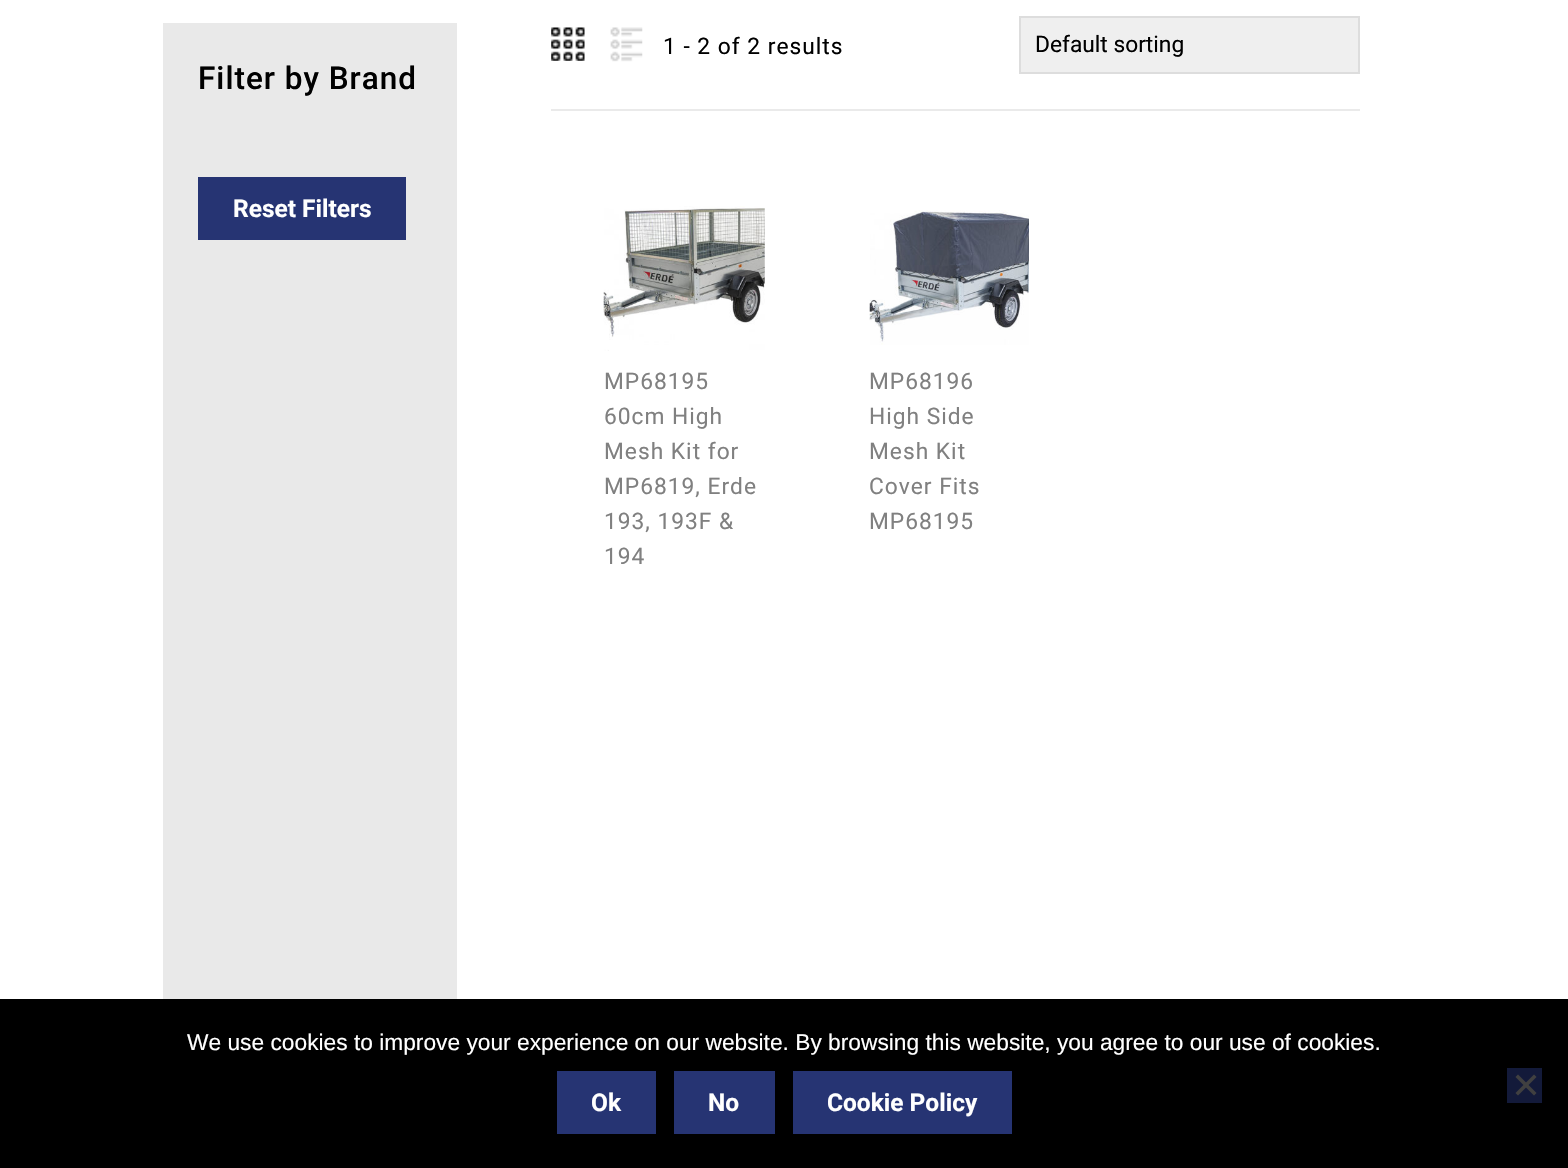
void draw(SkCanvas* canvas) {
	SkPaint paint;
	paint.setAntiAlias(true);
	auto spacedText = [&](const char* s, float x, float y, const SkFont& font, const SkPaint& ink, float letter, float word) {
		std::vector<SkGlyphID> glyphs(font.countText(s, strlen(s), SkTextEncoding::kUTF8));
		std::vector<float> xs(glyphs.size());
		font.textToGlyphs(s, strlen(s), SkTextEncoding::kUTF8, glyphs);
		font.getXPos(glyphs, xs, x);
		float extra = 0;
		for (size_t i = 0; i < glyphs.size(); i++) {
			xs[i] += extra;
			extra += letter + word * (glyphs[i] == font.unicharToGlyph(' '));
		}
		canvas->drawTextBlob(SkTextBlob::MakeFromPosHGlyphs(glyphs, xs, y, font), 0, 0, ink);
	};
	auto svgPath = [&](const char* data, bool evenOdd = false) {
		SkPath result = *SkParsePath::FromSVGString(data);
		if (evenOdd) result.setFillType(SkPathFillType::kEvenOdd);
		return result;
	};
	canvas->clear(0xffffffff);
	paint.setColor(0xffe9e9e9);
	canvas->drawRect(SkRect::MakeXYWH(163, 23, 294, 976), paint);
	SkFont f1(fontMgr->matchFamilyStyle("Roboto", SkFontStyle(500, SkFontStyle::kNormal_Width, SkFontStyle::kUpright_Slant)), 31.5);
	f1.setSubpixel(true);
	paint.setColor(0xff000000);
	spacedText("Filter by Brand", 198, 89, f1, paint, 1, 0);
	paint.setColor(0xff263473);
	canvas->drawRect(SkRect::MakeXYWH(198, 177, 208, 63), paint);
	SkFont f2(fontMgr->matchFamilyStyle("Roboto", SkFontStyle::Bold()), 24.5);
	f2.setSubpixel(true);
	paint.setColor(0xffffffff);
	canvas->drawString("Reset Filters", 233, 217, f2, paint);
	paint.setColor(0xffeaeaea);
	canvas->drawRect(SkRect::MakeXYWH(551, 109, 809, 2), paint);
	canvas->drawImageRect(SkImages::DeferredFromEncodedData(SkData::MakeFromFileName("img1.png")), SkRect::MakeXYWH(551, 27, 34, 34), SkSamplingOptions());
	canvas->drawImageRect(SkImages::DeferredFromEncodedData(SkData::MakeFromFileName("img2.png")), SkRect::MakeXYWH(610, 27, 33, 35), SkSamplingOptions());
	SkFont f3(fontMgr->matchFamilyStyle("Roboto", SkFontStyle::Normal()), 22.75);
	f3.setSubpixel(true);
	paint.setColor(0xff000000);
	spacedText("1 - 2 of 2 results", 663, 54, f3, paint, 1, 0);
	paint.setColor(0xffefefef);
	canvas->drawRect(SkRect::MakeXYWH(1020, 17, 339, 56), paint);
	paint.setStroke(true);
	paint.setStrokeWidth(2);
	paint.setColor(0xffdddddd);
	canvas->drawRect(SkRect::MakeXYWH(1020, 17, 339, 56), paint);
	paint.setStroke(false);
	paint.setColor(0xff000000);
	canvas->drawString("Default sorting", 1035, 52, f3, paint);
	canvas->drawImageRect(SkImages::DeferredFromEncodedData(SkData::MakeFromFileName("img3.png")), SkRect::MakeXYWH(603, 206, 162, 145), SkSamplingOptions());
	paint.setColor(0xff808080);
	spacedText("MP68195", 604, 389, f3, paint, 1, 0);
	spacedText("60cm High", 604, 424, f3, paint, 1, 0);
	spacedText("Mesh Kit for", 604, 459, f3, paint, 1, 0);
	spacedText("MP6819, Erde", 604, 494, f3, paint, 1, 0);
	spacedText("193, 193F &", 604, 529, f3, paint, 1, 0);
	spacedText("194", 604, 564, f3, paint, 1, 0);
	canvas->drawImageRect(SkImages::DeferredFromEncodedData(SkData::MakeFromFileName("img4.png")), SkRect::MakeXYWH(869, 210, 160, 135), SkSamplingOptions());
	spacedText("MP68196", 869, 389, f3, paint, 1, 0);
	spacedText("High Side", 869, 424, f3, paint, 1, 0);
	spacedText("Mesh Kit", 869, 459, f3, paint, 1, 0);
	spacedText("Cover Fits", 869, 494, f3, paint, 1, 0);
	spacedText("MP68195", 869, 529, f3, paint, 1, 0);
	paint.setColor(0xff000000);
	canvas->drawRect(SkRect::MakeXYWH(0, 999, 1568, 169), paint);
	SkFont f4(fontMgr->matchFamilyStyle("Liberation Sans", SkFontStyle::Normal()), 22.75);
	f4.setSubpixel(true);
	paint.setColor(0xffffffff);
	canvas->drawString("We use cookies to improve your experience on our website. By browsing this website, you agree to our use of cookies.", 187, 1050, f4, paint);
	paint.setColor(0xff263473);
	canvas->drawRect(SkRect::MakeXYWH(557, 1071, 99, 63), paint);
	paint.setColor(0xffffffff);
	canvas->drawString("Ok", 591, 1111, f2, paint);
	paint.setColor(0xff263473);
	canvas->drawRect(SkRect::MakeXYWH(674, 1071, 101, 63), paint);
	paint.setColor(0xffffffff);
	canvas->drawString("No", 708, 1111, f2, paint);
	paint.setColor(0xff263473);
	canvas->drawRect(SkRect::MakeXYWH(793, 1071, 219, 63), paint);
	paint.setColor(0xffffffff);
	canvas->drawString("Cookie Policy", 827, 1111, f2, paint);
	paint.setColor(0xff131a3a);
	canvas->drawRect(SkRect::MakeXYWH(1507, 1068, 35, 35), paint);
	paint.setColor(0xff404040);
	canvas->drawPath(svgPath("M1534 1074.5L1536.5 1077L1518 1095.5L1515.5 1093Z"), paint);
	canvas->drawPath(svgPath("M1515.5 1077L1518 1074.5L1536.5 1093L1534 1095.5Z"), paint);
}
